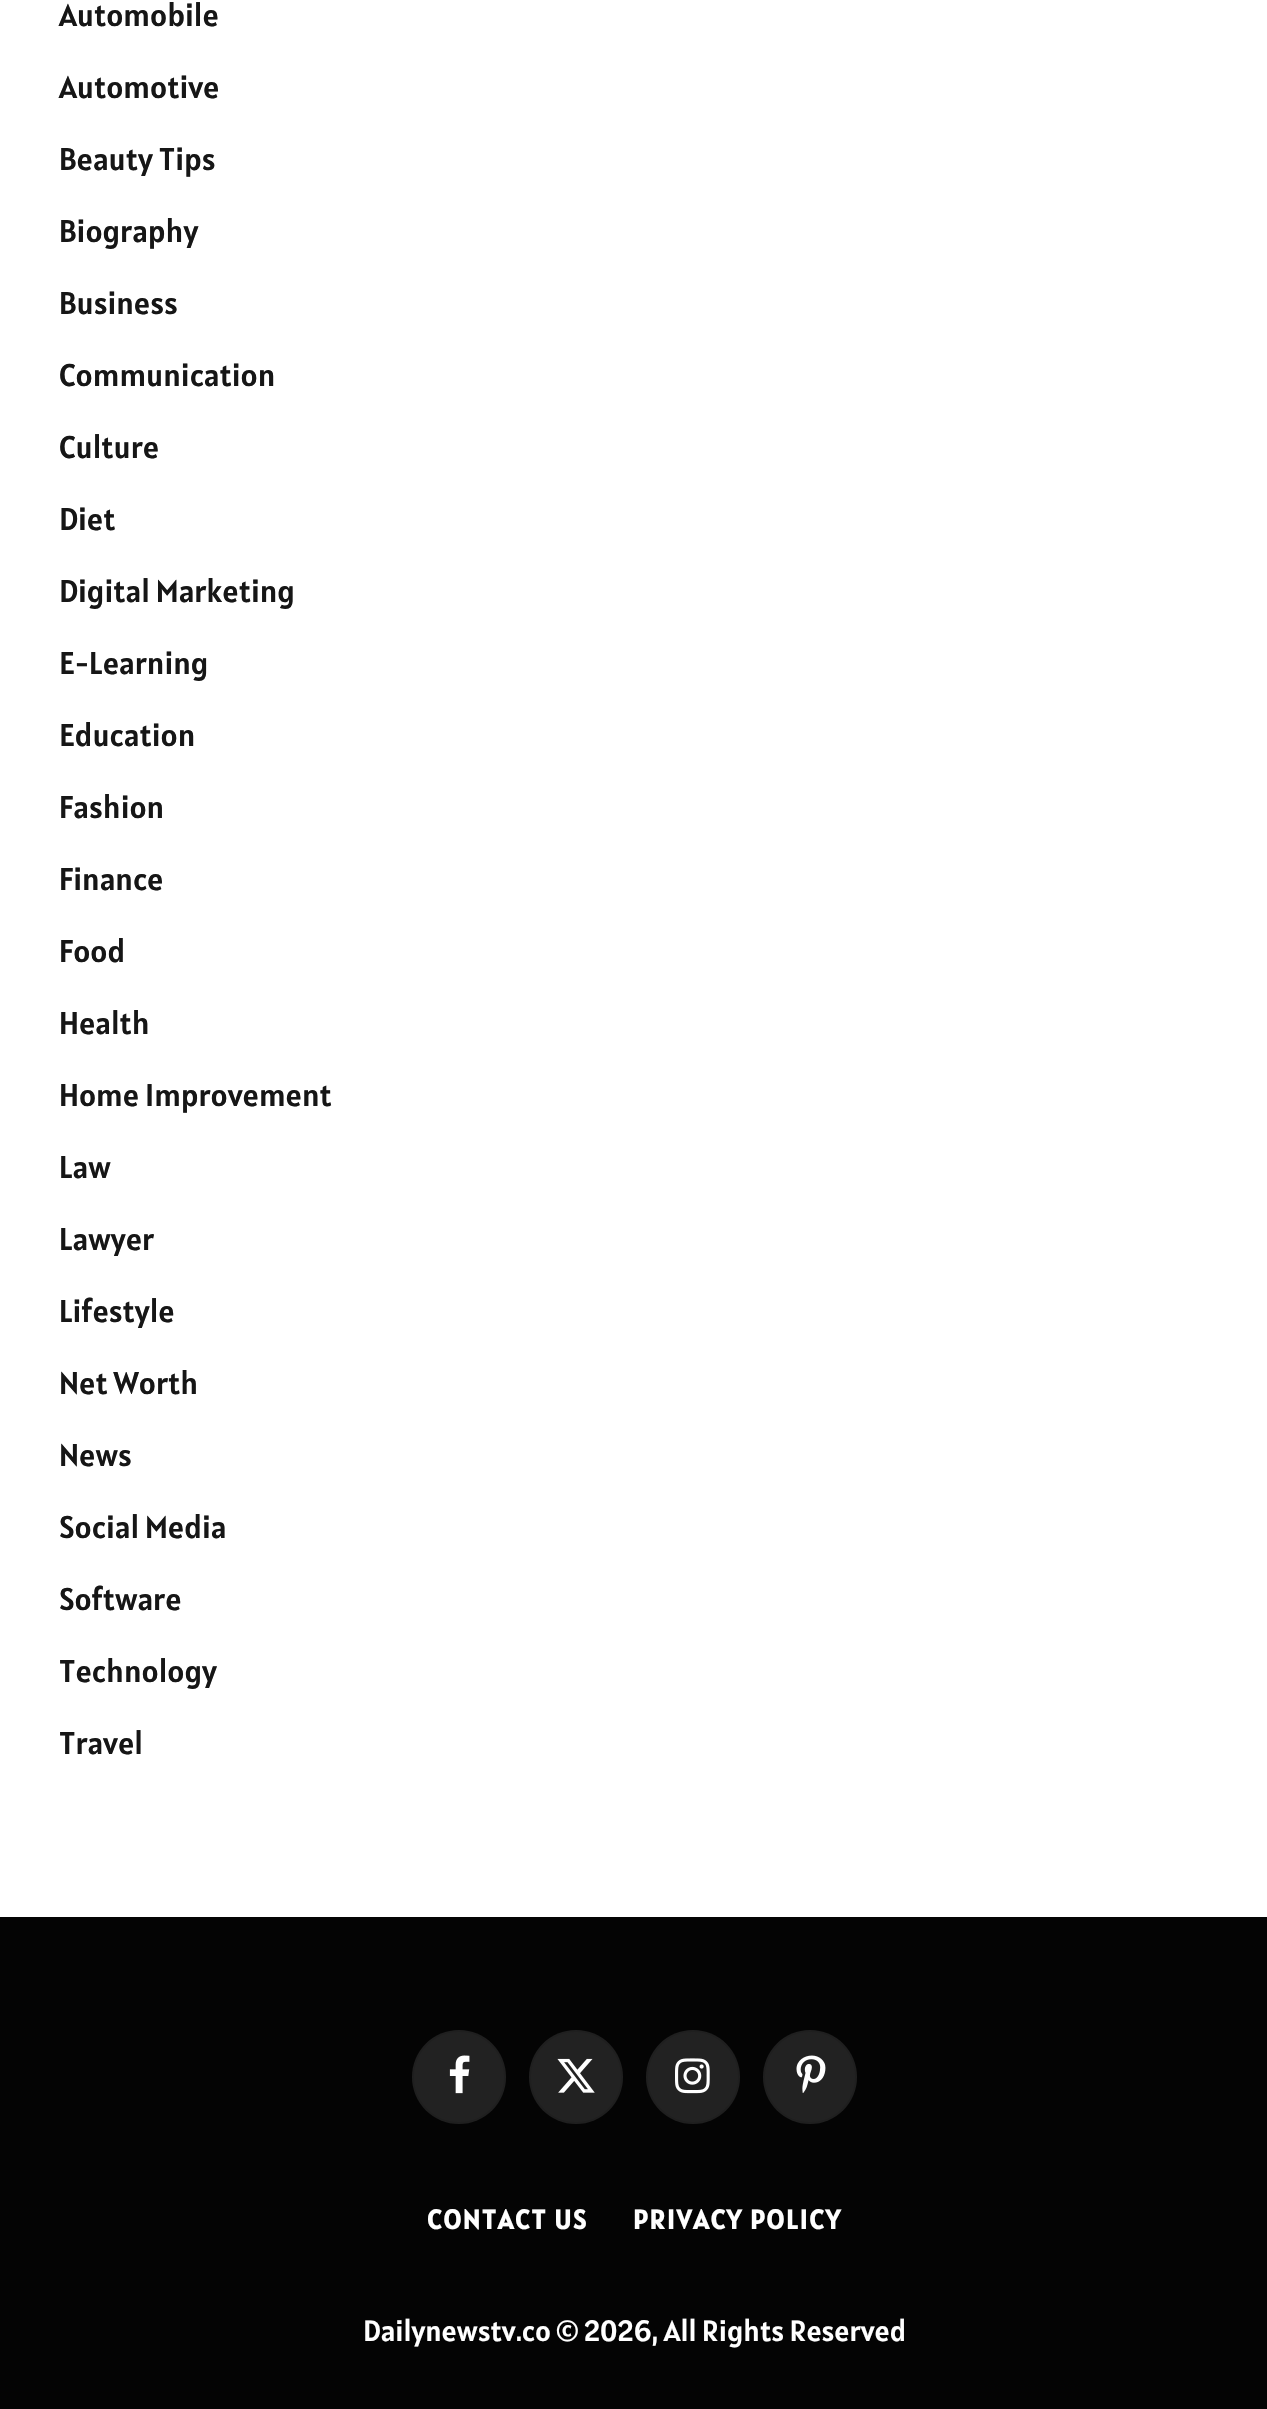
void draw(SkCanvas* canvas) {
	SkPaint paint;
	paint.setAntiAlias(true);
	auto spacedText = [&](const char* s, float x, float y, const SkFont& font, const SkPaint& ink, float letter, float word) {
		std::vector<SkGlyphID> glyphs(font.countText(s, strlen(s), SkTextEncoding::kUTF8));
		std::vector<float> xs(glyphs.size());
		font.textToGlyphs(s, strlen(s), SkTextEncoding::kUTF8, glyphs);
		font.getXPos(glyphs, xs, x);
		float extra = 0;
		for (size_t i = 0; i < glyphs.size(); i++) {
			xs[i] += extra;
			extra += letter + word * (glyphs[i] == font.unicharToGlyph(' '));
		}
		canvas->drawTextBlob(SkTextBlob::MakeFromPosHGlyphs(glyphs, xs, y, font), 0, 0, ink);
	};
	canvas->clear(0xffffffff);
	SkFont f1(fontMgr->matchFamilyStyle("Alatsi", SkFontStyle::Normal()), 31.5);
	f1.setSubpixel(true);
	paint.setColor(0xff161616);
	canvas->drawString("Automobile", 59, 26, f1, paint);
	canvas->drawString("Automotive", 59, 98, f1, paint);
	canvas->drawString("Beauty Tips", 59, 170, f1, paint);
	canvas->drawString("Biography", 59, 242, f1, paint);
	canvas->drawString("Business", 59, 314, f1, paint);
	canvas->drawString("Communication", 59, 386, f1, paint);
	canvas->drawString("Culture", 59, 458, f1, paint);
	canvas->drawString("Diet", 59, 530, f1, paint);
	canvas->drawString("Digital Marketing", 59, 602, f1, paint);
	canvas->drawString("E-Learning", 59, 674, f1, paint);
	canvas->drawString("Education", 59, 746, f1, paint);
	canvas->drawString("Fashion", 59, 818, f1, paint);
	canvas->drawString("Finance", 59, 890, f1, paint);
	canvas->drawString("Food", 59, 962, f1, paint);
	canvas->drawString("Health", 59, 1034, f1, paint);
	canvas->drawString("Home Improvement", 59, 1106, f1, paint);
	canvas->drawString("Law", 59, 1178, f1, paint);
	canvas->drawString("Lawyer", 59, 1250, f1, paint);
	canvas->drawString("Lifestyle", 59, 1322, f1, paint);
	canvas->drawString("Net Worth", 59, 1394, f1, paint);
	canvas->drawString("News", 59, 1466, f1, paint);
	canvas->drawString("Social Media", 59, 1538, f1, paint);
	canvas->drawString("Software", 59, 1610, f1, paint);
	canvas->drawString("Technology", 59, 1682, f1, paint);
	canvas->drawString("Travel", 59, 1754, f1, paint);
	paint.setColor(0xff040404);
	canvas->drawRect(SkRect::MakeXYWH(0, 1917, 1267, 492), paint);
	paint.setColor(0xff222222);
	canvas->drawCircle(459, 2077, 47, paint);
	paint.setStroke(true);
	paint.setStrokeWidth(2);
	paint.setColor(0x17000000);
	canvas->drawCircle(459, 2077, 46, paint);
	canvas->drawImageRect(SkImages::DeferredFromEncodedData(SkData::MakeFromFileName("img1.png")), SkRect::MakeXYWH(449, 2055, 21, 39), SkSamplingOptions());
	paint.setStroke(false);
	paint.setColor(0xff222222);
	canvas->drawCircle(576, 2077, 47, paint);
	paint.setStroke(true);
	paint.setColor(0x17000000);
	canvas->drawCircle(576, 2077, 46, paint);
	canvas->drawImageRect(SkImages::DeferredFromEncodedData(SkData::MakeFromFileName("img2.png")), SkRect::MakeXYWH(557, 2058, 38, 35), SkSamplingOptions());
	paint.setStroke(false);
	paint.setColor(0xff222222);
	canvas->drawCircle(693, 2077, 47, paint);
	paint.setStroke(true);
	paint.setColor(0x17000000);
	canvas->drawCircle(693, 2077, 46, paint);
	canvas->drawImageRect(SkImages::DeferredFromEncodedData(SkData::MakeFromFileName("img3.png")), SkRect::MakeXYWH(675, 2058, 35, 36), SkSamplingOptions());
	paint.setStroke(false);
	paint.setColor(0xff222222);
	canvas->drawCircle(810, 2077, 47, paint);
	paint.setStroke(true);
	paint.setColor(0x17000000);
	canvas->drawCircle(810, 2077, 46, paint);
	canvas->drawImageRect(SkImages::DeferredFromEncodedData(SkData::MakeFromFileName("img4.png")), SkRect::MakeXYWH(796, 2055, 30, 38), SkSamplingOptions());
	SkFont f2(fontMgr->matchFamilyStyle("Alatsi", SkFontStyle::Bold()), 27);
	f2.setSubpixel(true);
	paint.setStroke(false);
	paint.setColor(0xffffffff);
	spacedText("CONTACT US", 427, 2229, f2, paint, 1.9, 0);
	spacedText("PRIVACY POLICY", 633, 2229, f2, paint, 1.9, 0);
	SkFont f3(fontMgr->matchFamilyStyle("Alatsi", SkFontStyle::Normal()), 29.25);
	f3.setSubpixel(true);
	canvas->drawString("Dailynewstv.co © 2026, All Rights Reserved", 363, 2341, f3, paint);
}
